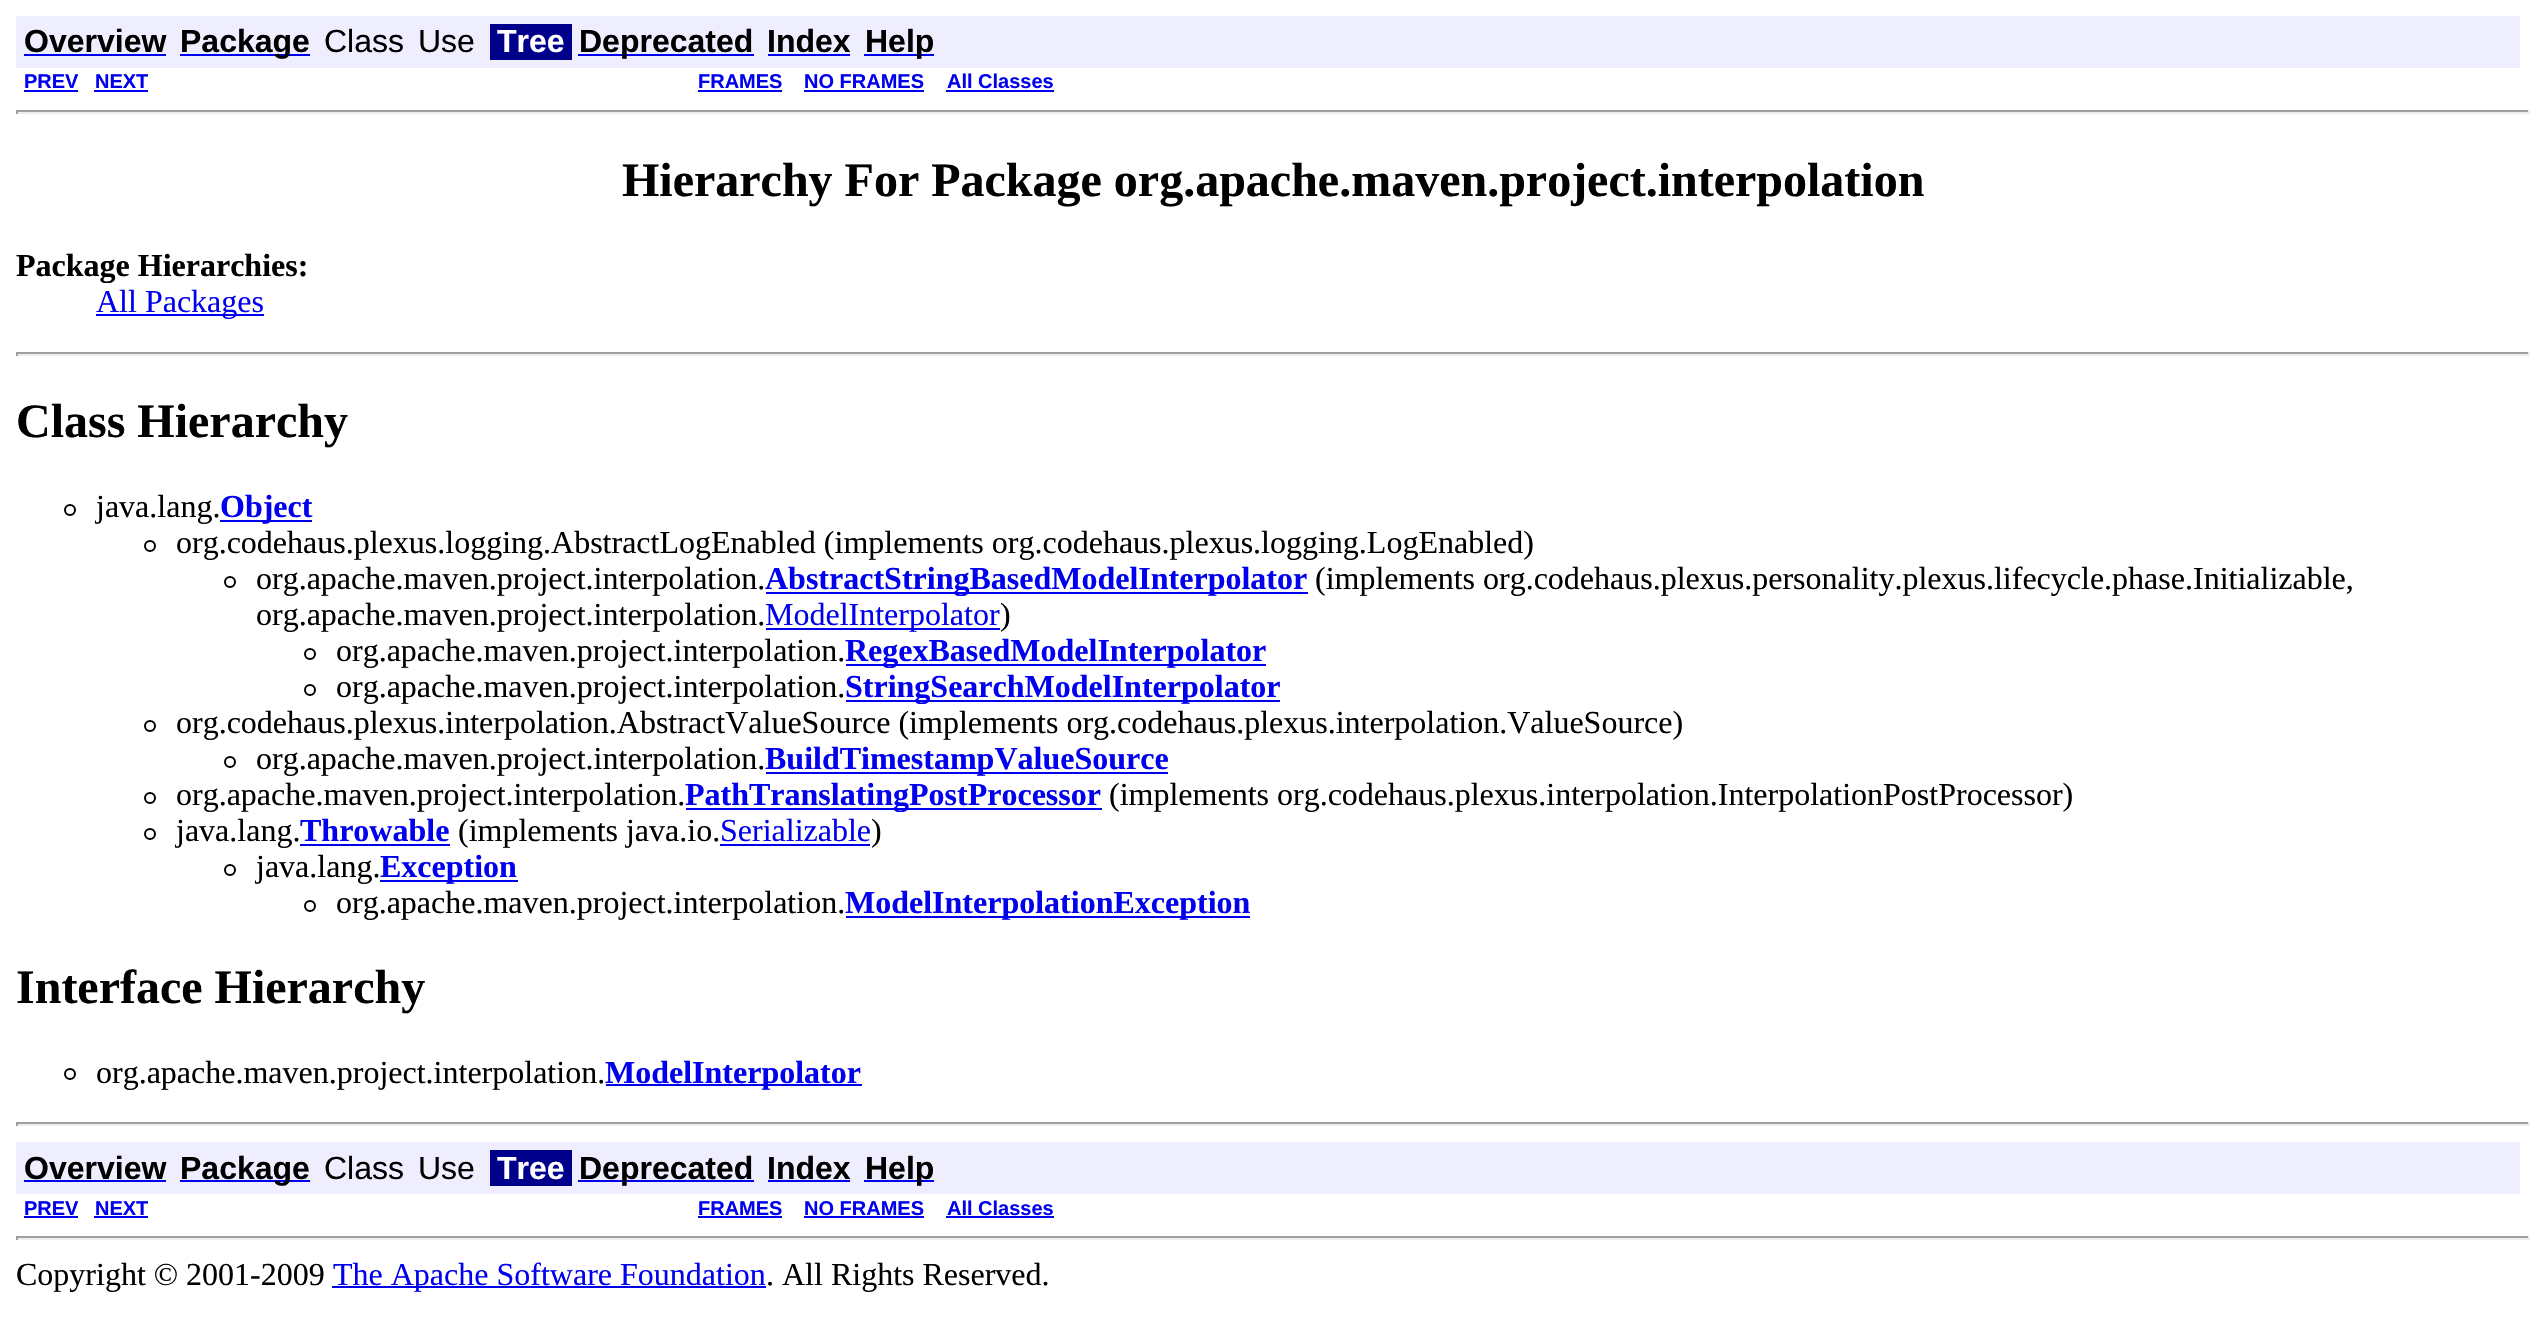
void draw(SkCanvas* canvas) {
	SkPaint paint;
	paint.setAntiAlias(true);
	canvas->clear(0xffffffff);
	paint.setColor(0xffeeeeff);
	canvas->drawRect(SkRect::MakeXYWH(16, 16, 2504, 52), paint);
	SkFont f1(fontMgr->matchFamilyStyle("Liberation Sans", SkFontStyle::Bold()), 32);
	f1.setSubpixel(true);
	paint.setColor(0xff000000);
	canvas->drawString("Overview", 24, 52, f1, paint);
	paint.setColor(0xff0000ee);
	canvas->drawRect(SkRect::MakeXYWH(24, 54, 142, 2), paint);
	canvas->drawRect(SkRect::MakeXYWH(180, 54, 130, 2), paint);
	paint.setColor(0xff000000);
	canvas->drawString("Package", 180, 52, f1, paint);
	SkFont f2(fontMgr->matchFamilyStyle("Liberation Sans", SkFontStyle::Normal()), 32);
	f2.setSubpixel(true);
	canvas->drawString("Class", 324, 52, f2, paint);
	canvas->drawString("Use", 418, 52, f2, paint);
	paint.setColor(0xff00008b);
	canvas->drawRect(SkRect::MakeXYWH(490, 24, 82, 36), paint);
	paint.setColor(0xffffffff);
	canvas->drawString("Tree", 497, 52, f1, paint);
	paint.setColor(0xff0000ee);
	canvas->drawRect(SkRect::MakeXYWH(578, 54, 176, 2), paint);
	paint.setColor(0xff000000);
	canvas->drawString("Deprecated", 579, 52, f1, paint);
	canvas->drawString("Index", 767, 52, f1, paint);
	paint.setColor(0xff0000ee);
	canvas->drawRect(SkRect::MakeXYWH(768, 54, 82, 2), paint);
	canvas->drawRect(SkRect::MakeXYWH(864, 54, 70, 2), paint);
	paint.setColor(0xff000000);
	canvas->drawString("Help", 865, 52, f1, paint);
	SkFont f3(fontMgr->matchFamilyStyle("Liberation Sans", SkFontStyle::Bold()), 20);
	f3.setSubpixel(true);
	paint.setColor(0xff0000ee);
	canvas->drawString("PREV", 24, 88, f3, paint);
	canvas->drawRect(SkRect::MakeXYWH(24, 90, 54, 2), paint);
	canvas->drawString("NEXT", 95, 88, f3, paint);
	canvas->drawRect(SkRect::MakeXYWH(94, 90, 54, 2), paint);
	canvas->drawString("FRAMES", 698, 88, f3, paint);
	canvas->drawRect(SkRect::MakeXYWH(698, 90, 84, 2), paint);
	canvas->drawString("NO FRAMES", 804, 88, f3, paint);
	canvas->drawRect(SkRect::MakeXYWH(804, 90, 120, 2), paint);
	canvas->drawString("All Classes", 947, 88, f3, paint);
	canvas->drawRect(SkRect::MakeXYWH(946, 90, 108, 2), paint);
	paint.setColor(0xff9f9f9f);
	canvas->drawRect(SkRect::MakeXYWH(16, 110, 2514, 2), paint);
	paint.setColor(0xffeeeeee);
	canvas->drawRect(SkRect::MakeXYWH(2528, 110, 2, 4), paint);
	canvas->drawRect(SkRect::MakeXYWH(16, 112, 2514, 2), paint);
	paint.setColor(0xff9f9f9f);
	canvas->drawRect(SkRect::MakeXYWH(16, 110, 2, 4), paint);
	SkFont f4(fontMgr->matchFamilyStyle("Liberation Serif", SkFontStyle::Bold()), 48);
	f4.setSubpixel(true);
	paint.setColor(0xff000000);
	canvas->drawString("Hierarchy For Package org.apache.maven.project.interpolation", 622, 196, f4, paint);
	SkFont f5(fontMgr->matchFamilyStyle("Liberation Serif", SkFontStyle::Bold()), 32);
	f5.setSubpixel(true);
	canvas->drawString("Package Hierarchies:", 16, 276, f5, paint);
	paint.setColor(0xff0000ee);
	canvas->drawRect(SkRect::MakeXYWH(96, 314, 168, 2), paint);
	SkFont f6(fontMgr->matchFamilyStyle("Liberation Serif", SkFontStyle::Normal()), 32);
	f6.setSubpixel(true);
	canvas->drawString("All Packages", 96, 312, f6, paint);
	paint.setColor(0xff9f9f9f);
	canvas->drawRect(SkRect::MakeXYWH(16, 352, 2514, 2), paint);
	paint.setColor(0xffeeeeee);
	canvas->drawRect(SkRect::MakeXYWH(2528, 352, 2, 4), paint);
	canvas->drawRect(SkRect::MakeXYWH(16, 354, 2514, 2), paint);
	paint.setColor(0xff9f9f9f);
	canvas->drawRect(SkRect::MakeXYWH(16, 352, 2, 4), paint);
	paint.setColor(0xff000000);
	canvas->drawString("Class Hierarchy", 16, 437, f4, paint);
	paint.setStroke(true);
	paint.setStrokeWidth(2);
	canvas->drawCircle(70, 510, 5, paint);
	paint.setStroke(false);
	canvas->drawString("java.lang.", 96, 517, f6, paint);
	paint.setColor(0xff0000ee);
	canvas->drawRect(SkRect::MakeXYWH(220, 520, 92, 2), paint);
	canvas->drawString("Object", 220, 517, f5, paint);
	paint.setStroke(true);
	paint.setColor(0xff000000);
	canvas->drawCircle(150, 546, 5, paint);
	paint.setStroke(false);
	canvas->drawString("org.codehaus.plexus.logging.AbstractLogEnabled (implements org.codehaus.plexus.logging.LogEnabled)", 176, 553, f6, paint);
	paint.setStroke(true);
	canvas->drawCircle(230, 582, 5, paint);
	paint.setStroke(false);
	canvas->drawString("org.apache.maven.project.interpolation.", 256, 589, f6, paint);
	paint.setColor(0xff0000ee);
	canvas->drawRect(SkRect::MakeXYWH(766, 592, 542, 2), paint);
	canvas->drawString("AbstractStringBasedModelInterpolator", 765, 589, f5, paint);
	paint.setColor(0xff000000);
	canvas->drawString("(implements org.codehaus.plexus.personality.plexus.lifecycle.phase.Initializable,", 1315, 589, f6, paint);
	canvas->drawString("org.apache.maven.project.interpolation.", 256, 625, f6, paint);
	paint.setColor(0xff0000ee);
	canvas->drawRect(SkRect::MakeXYWH(766, 628, 234, 2), paint);
	canvas->drawString("ModelInterpolator", 765, 625, f6, paint);
	paint.setColor(0xff000000);
	canvas->drawString(")", 1000, 625, f6, paint);
	paint.setStroke(true);
	canvas->drawCircle(310, 654, 5, paint);
	paint.setStroke(false);
	canvas->drawString("org.apache.maven.project.interpolation.", 336, 661, f6, paint);
	paint.setColor(0xff0000ee);
	canvas->drawRect(SkRect::MakeXYWH(846, 664, 420, 2), paint);
	canvas->drawString("RegexBasedModelInterpolator", 845, 661, f5, paint);
	paint.setStroke(true);
	paint.setColor(0xff000000);
	canvas->drawCircle(310, 690, 5, paint);
	paint.setStroke(false);
	canvas->drawString("org.apache.maven.project.interpolation.", 336, 697, f6, paint);
	paint.setColor(0xff0000ee);
	canvas->drawRect(SkRect::MakeXYWH(846, 700, 434, 2), paint);
	canvas->drawString("StringSearchModelInterpolator", 845, 697, f5, paint);
	paint.setStroke(true);
	paint.setColor(0xff000000);
	canvas->drawCircle(150, 726, 5, paint);
	paint.setStroke(false);
	canvas->drawString("org.codehaus.plexus.interpolation.AbstractValueSource (implements org.codehaus.plexus.interpolation.ValueSource)", 176, 733, f6, paint);
	paint.setStroke(true);
	canvas->drawCircle(230, 762, 5, paint);
	paint.setStroke(false);
	canvas->drawString("org.apache.maven.project.interpolation.", 256, 769, f6, paint);
	paint.setColor(0xff0000ee);
	canvas->drawRect(SkRect::MakeXYWH(766, 772, 402, 2), paint);
	canvas->drawString("BuildTimestampValueSource", 765, 769, f5, paint);
	paint.setStroke(true);
	paint.setColor(0xff000000);
	canvas->drawCircle(150, 798, 5, paint);
	paint.setStroke(false);
	canvas->drawString("org.apache.maven.project.interpolation.", 176, 805, f6, paint);
	paint.setColor(0xff0000ee);
	canvas->drawRect(SkRect::MakeXYWH(686, 808, 416, 2), paint);
	canvas->drawString("PathTranslatingPostProcessor", 685, 805, f5, paint);
	paint.setColor(0xff000000);
	canvas->drawString("(implements org.codehaus.plexus.interpolation.InterpolationPostProcessor)", 1109, 805, f6, paint);
	paint.setStroke(true);
	canvas->drawCircle(150, 834, 5, paint);
	paint.setStroke(false);
	canvas->drawString("java.lang.", 176, 841, f6, paint);
	paint.setColor(0xff0000ee);
	canvas->drawString("Throwable", 300, 841, f5, paint);
	canvas->drawRect(SkRect::MakeXYWH(300, 844, 150, 2), paint);
	paint.setColor(0xff000000);
	canvas->drawString("(implements java.io.", 458, 841, f6, paint);
	paint.setColor(0xff0000ee);
	canvas->drawString("Serializable", 720, 841, f6, paint);
	canvas->drawRect(SkRect::MakeXYWH(720, 844, 150, 2), paint);
	paint.setColor(0xff000000);
	canvas->drawString(")", 871, 841, f6, paint);
	paint.setStroke(true);
	canvas->drawCircle(230, 870, 5, paint);
	paint.setStroke(false);
	canvas->drawString("java.lang.", 256, 877, f6, paint);
	paint.setColor(0xff0000ee);
	canvas->drawRect(SkRect::MakeXYWH(380, 880, 138, 2), paint);
	canvas->drawString("Exception", 380, 877, f5, paint);
	paint.setStroke(true);
	paint.setColor(0xff000000);
	canvas->drawCircle(310, 906, 5, paint);
	paint.setStroke(false);
	canvas->drawString("org.apache.maven.project.interpolation.", 336, 913, f6, paint);
	paint.setColor(0xff0000ee);
	canvas->drawRect(SkRect::MakeXYWH(846, 916, 404, 2), paint);
	canvas->drawString("ModelInterpolationException", 845, 913, f5, paint);
	paint.setColor(0xff000000);
	canvas->drawString("Interface Hierarchy", 16, 1003, f4, paint);
	paint.setStroke(true);
	canvas->drawCircle(70, 1074, 5, paint);
	paint.setStroke(false);
	canvas->drawString("org.apache.maven.project.interpolation.", 96, 1083, f6, paint);
	paint.setColor(0xff0000ee);
	canvas->drawRect(SkRect::MakeXYWH(606, 1084, 256, 2), paint);
	canvas->drawString("ModelInterpolator", 605, 1083, f5, paint);
	paint.setColor(0xff9f9f9f);
	canvas->drawRect(SkRect::MakeXYWH(16, 1122, 2514, 2), paint);
	paint.setColor(0xffeeeeee);
	canvas->drawRect(SkRect::MakeXYWH(2528, 1122, 2, 4), paint);
	canvas->drawRect(SkRect::MakeXYWH(16, 1124, 2514, 2), paint);
	paint.setColor(0xff9f9f9f);
	canvas->drawRect(SkRect::MakeXYWH(16, 1122, 2, 4), paint);
	paint.setColor(0xffeeeeff);
	canvas->drawRect(SkRect::MakeXYWH(16, 1142, 2504, 52), paint);
	paint.setColor(0xff000000);
	canvas->drawString("Overview", 24, 1179, f1, paint);
	paint.setColor(0xff0000ee);
	canvas->drawRect(SkRect::MakeXYWH(24, 1180, 142, 2), paint);
	canvas->drawRect(SkRect::MakeXYWH(180, 1180, 130, 2), paint);
	paint.setColor(0xff000000);
	canvas->drawString("Package", 180, 1179, f1, paint);
	canvas->drawString("Class", 324, 1179, f2, paint);
	canvas->drawString("Use", 418, 1179, f2, paint);
	paint.setColor(0xff00008b);
	canvas->drawRect(SkRect::MakeXYWH(490, 1150, 82, 36), paint);
	paint.setColor(0xffffffff);
	canvas->drawString("Tree", 497, 1179, f1, paint);
	paint.setColor(0xff0000ee);
	canvas->drawRect(SkRect::MakeXYWH(578, 1180, 176, 2), paint);
	paint.setColor(0xff000000);
	canvas->drawString("Deprecated", 579, 1179, f1, paint);
	canvas->drawString("Index", 767, 1179, f1, paint);
	paint.setColor(0xff0000ee);
	canvas->drawRect(SkRect::MakeXYWH(768, 1180, 82, 2), paint);
	canvas->drawRect(SkRect::MakeXYWH(864, 1180, 70, 2), paint);
	paint.setColor(0xff000000);
	canvas->drawString("Help", 865, 1179, f1, paint);
	paint.setColor(0xff0000ee);
	canvas->drawString("PREV", 24, 1215, f3, paint);
	canvas->drawRect(SkRect::MakeXYWH(24, 1216, 54, 2), paint);
	canvas->drawString("NEXT", 95, 1215, f3, paint);
	canvas->drawRect(SkRect::MakeXYWH(94, 1216, 54, 2), paint);
	canvas->drawString("FRAMES", 698, 1215, f3, paint);
	canvas->drawRect(SkRect::MakeXYWH(698, 1216, 84, 2), paint);
	canvas->drawString("NO FRAMES", 804, 1215, f3, paint);
	canvas->drawRect(SkRect::MakeXYWH(804, 1216, 120, 2), paint);
	canvas->drawString("All Classes", 947, 1215, f3, paint);
	canvas->drawRect(SkRect::MakeXYWH(946, 1216, 108, 2), paint);
	paint.setColor(0xff9f9f9f);
	canvas->drawRect(SkRect::MakeXYWH(16, 1236, 2514, 2), paint);
	paint.setColor(0xffeeeeee);
	canvas->drawRect(SkRect::MakeXYWH(2528, 1236, 2, 4), paint);
	canvas->drawRect(SkRect::MakeXYWH(16, 1238, 2514, 2), paint);
	paint.setColor(0xff9f9f9f);
	canvas->drawRect(SkRect::MakeXYWH(16, 1236, 2, 4), paint);
	paint.setColor(0xff000000);
	canvas->drawString("Copyright © 2001-2009", 16, 1285, f6, paint);
	paint.setColor(0xff0000ee);
	canvas->drawRect(SkRect::MakeXYWH(332, 1286, 434, 2), paint);
	canvas->drawString("The Apache Software Foundation", 333, 1285, f6, paint);
	paint.setColor(0xff000000);
	canvas->drawString(". All Rights Reserved.", 766, 1285, f6, paint);
}
